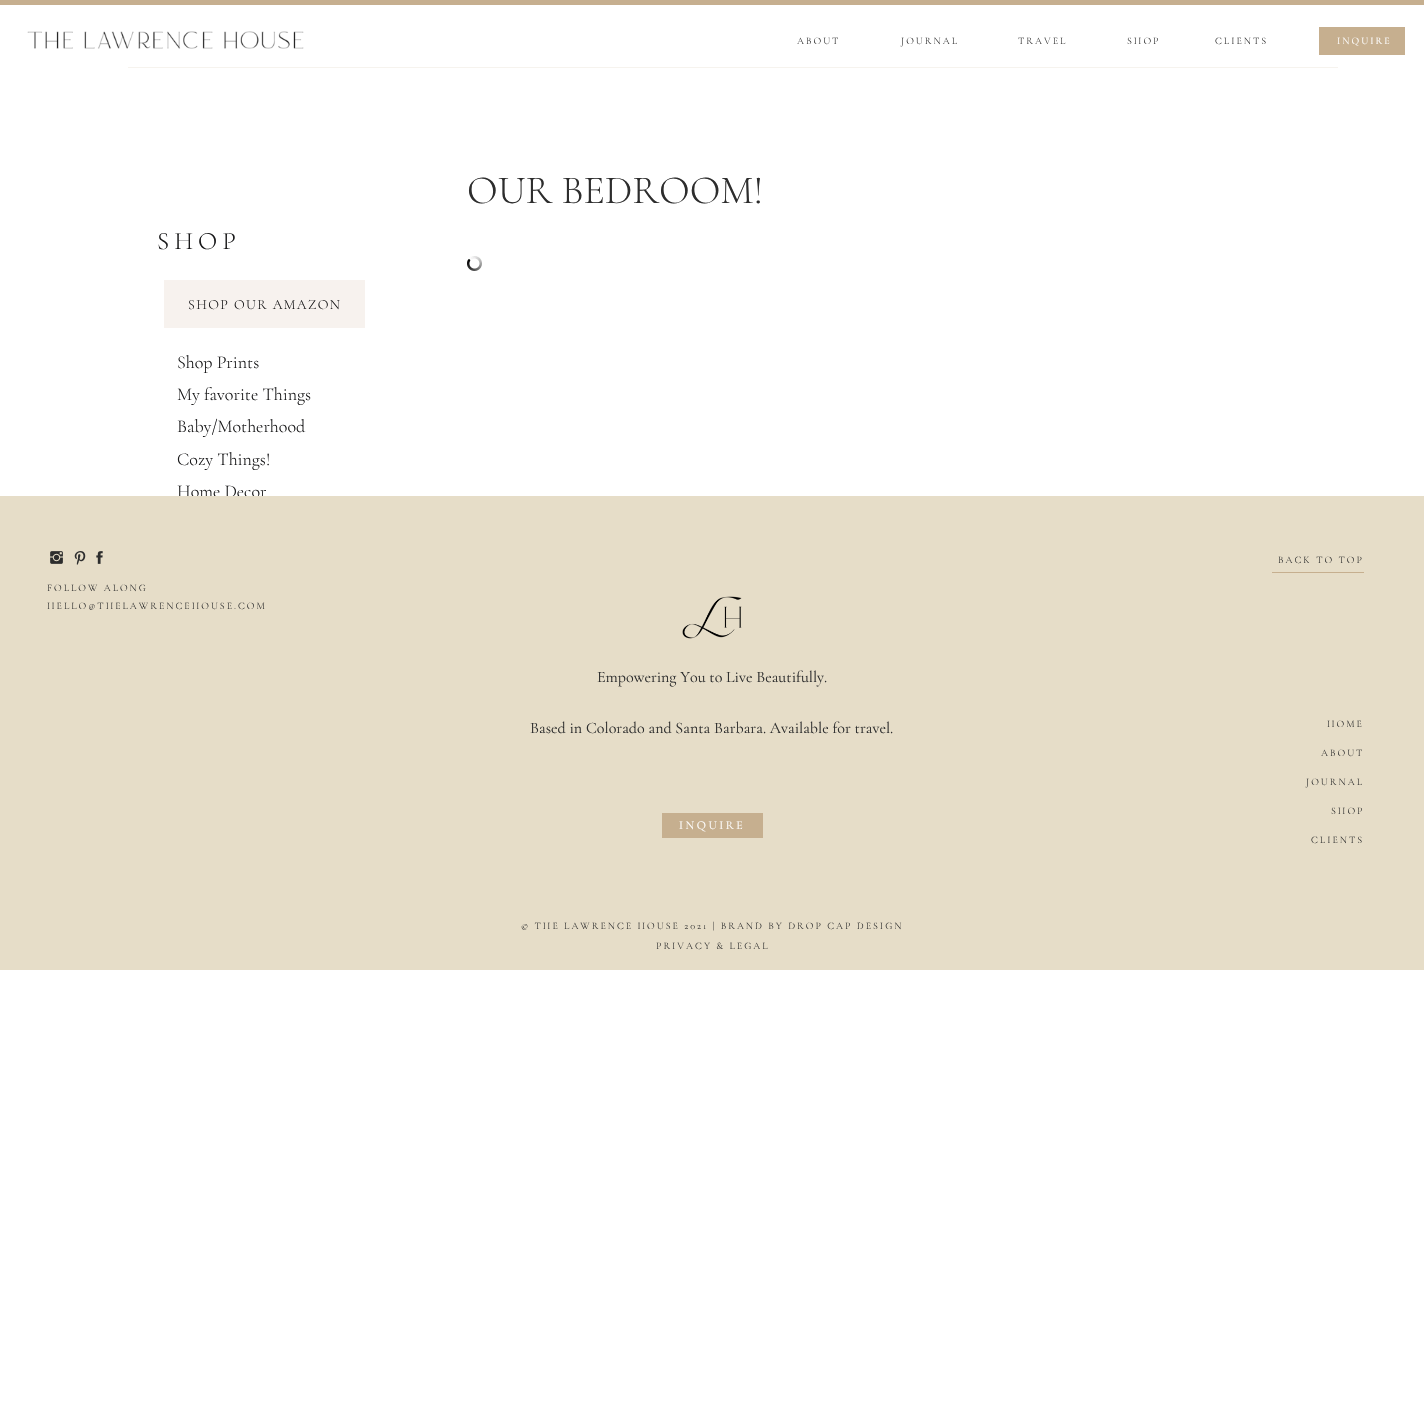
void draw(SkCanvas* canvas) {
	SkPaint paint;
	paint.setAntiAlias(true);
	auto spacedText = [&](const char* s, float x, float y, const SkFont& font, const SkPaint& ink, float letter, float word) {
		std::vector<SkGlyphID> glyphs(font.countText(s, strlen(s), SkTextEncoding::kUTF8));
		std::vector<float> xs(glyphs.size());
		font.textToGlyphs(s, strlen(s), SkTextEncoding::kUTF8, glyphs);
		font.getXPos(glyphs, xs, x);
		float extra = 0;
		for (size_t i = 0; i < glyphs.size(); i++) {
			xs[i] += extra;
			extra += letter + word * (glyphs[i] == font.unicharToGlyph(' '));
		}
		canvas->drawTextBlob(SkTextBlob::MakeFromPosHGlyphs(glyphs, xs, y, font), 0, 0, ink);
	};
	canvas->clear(0xffffffff);
	paint.setColor(0xffc6af8f);
	canvas->drawRect(SkRect::MakeXYWH(0, 0, 1424, 5), paint);
	canvas->drawImageRect(SkImages::DeferredFromEncodedData(SkData::MakeFromFileName("img1.png")), SkRect::MakeXYWH(27, 31, 277, 18), SkSamplingOptions());
	SkFont f1(fontMgr->matchFamilyStyle("Cormorant Garamond", SkFontStyle(300, SkFontStyle::kNormal_Width, SkFontStyle::kUpright_Slant)), 10);
	f1.setSubpixel(true);
	paint.setColor(0xff2d2d2d);
	spacedText("ABOUT", 797, 44, f1, paint, 2, 0);
	spacedText("JOURNAL", 901, 44, f1, paint, 2, 0);
	spacedText("TRAVEL", 1018, 44, f1, paint, 2, 0);
	spacedText("SHOP", 1127, 44, f1, paint, 2, 0);
	spacedText("CLIENTS", 1215, 44, f1, paint, 2, 0);
	paint.setColor(0xffc6af8f);
	canvas->drawRect(SkRect::MakeXYWH(1319, 27, 86, 28), paint);
	SkFont f2(fontMgr->matchFamilyStyle("Cormorant Garamond", SkFontStyle::Normal()), 10);
	f2.setSubpixel(true);
	paint.setColor(0xffffffff);
	spacedText("INQUIRE", 1337, 44, f2, paint, 2, 0);
	paint.setColor(0xfff6f3ee);
	canvas->drawRect(SkRect::MakeXYWH(128, 67, 1210, 1), paint);
	SkFont f3(fontMgr->matchFamilyStyle("Cormorant Garamond", SkFontStyle(300, SkFontStyle::kNormal_Width, SkFontStyle::kUpright_Slant)), 40);
	f3.setSubpixel(true);
	paint.setColor(0xff2d2d2d);
	canvas->drawString("OUR BEDROOM!", 467, 203, f3, paint);
	SkFont f4(fontMgr->matchFamilyStyle("Cormorant Garamond", SkFontStyle(300, SkFontStyle::kNormal_Width, SkFontStyle::kUpright_Slant)), 25);
	f4.setSubpixel(true);
	paint.setColor(0xff19191a);
	spacedText("SHOP", 157, 249, f4, paint, 5, 0);
	paint.setColor(0xfff7f2ee);
	canvas->drawRect(SkRect::MakeXYWH(164, 280, 201, 48), paint);
	SkFont f5(fontMgr->matchFamilyStyle("Cormorant Garamond", SkFontStyle(300, SkFontStyle::kNormal_Width, SkFontStyle::kUpright_Slant)), 14);
	f5.setSubpixel(true);
	paint.setColor(0xff19191a);
	spacedText("SHOP OUR AMAZON", 188, 309, f5, paint, 1.4, 0);
	SkFont f6(fontMgr->matchFamilyStyle("Cormorant Garamond", SkFontStyle(300, SkFontStyle::kNormal_Width, SkFontStyle::kUpright_Slant)), 18);
	f6.setSubpixel(true);
	canvas->drawString("Shop Prints", 177, 368, f6, paint);
	canvas->drawString("My favorite Things", 177, 400, f6, paint);
	canvas->drawString("Baby/Motherhood", 177, 432, f6, paint);
	canvas->drawString("Cozy Things!", 177, 465, f6, paint);
	canvas->drawString("Home Decor", 177, 497, f6, paint);
	canvas->drawImageRect(SkImages::DeferredFromEncodedData(SkData::MakeFromFileName("img2.png")), SkRect::MakeXYWH(467, 256, 15, 15), SkSamplingOptions());
	paint.setColor(0xffe6ddc8);
	canvas->drawRect(SkRect::MakeXYWH(0, 496, 1424, 474), paint);
	canvas->drawImageRect(SkImages::DeferredFromEncodedData(SkData::MakeFromFileName("img3.png")), SkRect::MakeXYWH(50, 551, 13, 13), SkSamplingOptions());
	canvas->drawImageRect(SkImages::DeferredFromEncodedData(SkData::MakeFromFileName("img4.png")), SkRect::MakeXYWH(74, 551, 12, 14), SkSamplingOptions());
	canvas->drawImageRect(SkImages::DeferredFromEncodedData(SkData::MakeFromFileName("img5.png")), SkRect::MakeXYWH(96, 551, 7, 13), SkSamplingOptions());
	paint.setColor(0xff2d2d2d);
	spacedText("BACK TO TOP", 1278, 563, f1, paint, 2, 0);
	paint.setColor(0xffc6af8f);
	canvas->drawRect(SkRect::MakeXYWH(1272, 572, 92, 1), paint);
	paint.setColor(0xff2d2d2d);
	spacedText("FOLLOW ALONG", 47, 591, f1, paint, 2, 0);
	spacedText("HELLO@THELAWRENCEHOUSE.COM", 47, 609, f1, paint, 2, 0);
	canvas->drawImageRect(SkImages::DeferredFromEncodedData(SkData::MakeFromFileName("img6.png")), SkRect::MakeXYWH(682, 596, 60, 43), SkSamplingOptions());
	SkFont f7(fontMgr->matchFamilyStyle("Cormorant Garamond", SkFontStyle::Normal()), 16);
	f7.setSubpixel(true);
	canvas->drawString("Empowering You to Live Beautifully.", 597, 682, f7, paint);
	canvas->drawString("Based in Colorado and Santa Barbara. Available for travel.", 530, 733, f7, paint);
	spacedText("HOME", 1327, 727, f1, paint, 2, 0);
	spacedText("ABOUT", 1321, 756, f1, paint, 2, 0);
	spacedText("JOURNAL", 1306, 785, f1, paint, 2, 0);
	spacedText("SHOP", 1331, 814, f1, paint, 2, 0);
	paint.setColor(0xffc6af8f);
	canvas->drawRect(SkRect::MakeXYWH(662, 813, 101, 25), paint);
	SkFont f8(fontMgr->matchFamilyStyle("Cormorant Garamond", SkFontStyle::Normal()), 12);
	f8.setSubpixel(true);
	paint.setColor(0xffffffff);
	spacedText("INQUIRE", 679, 829, f8, paint, 2.5, 0);
	paint.setColor(0xff2d2d2d);
	spacedText("CLIENTS", 1311, 843, f1, paint, 2, 0);
	spacedText("© THE LAWRENCE HOUSE 2021 | BRAND BY DROP CAP DESIGN", 521, 929, f1, paint, 2, 0);
	spacedText("PRIVACY & LEGAL", 656, 949, f1, paint, 2, 0);
}
